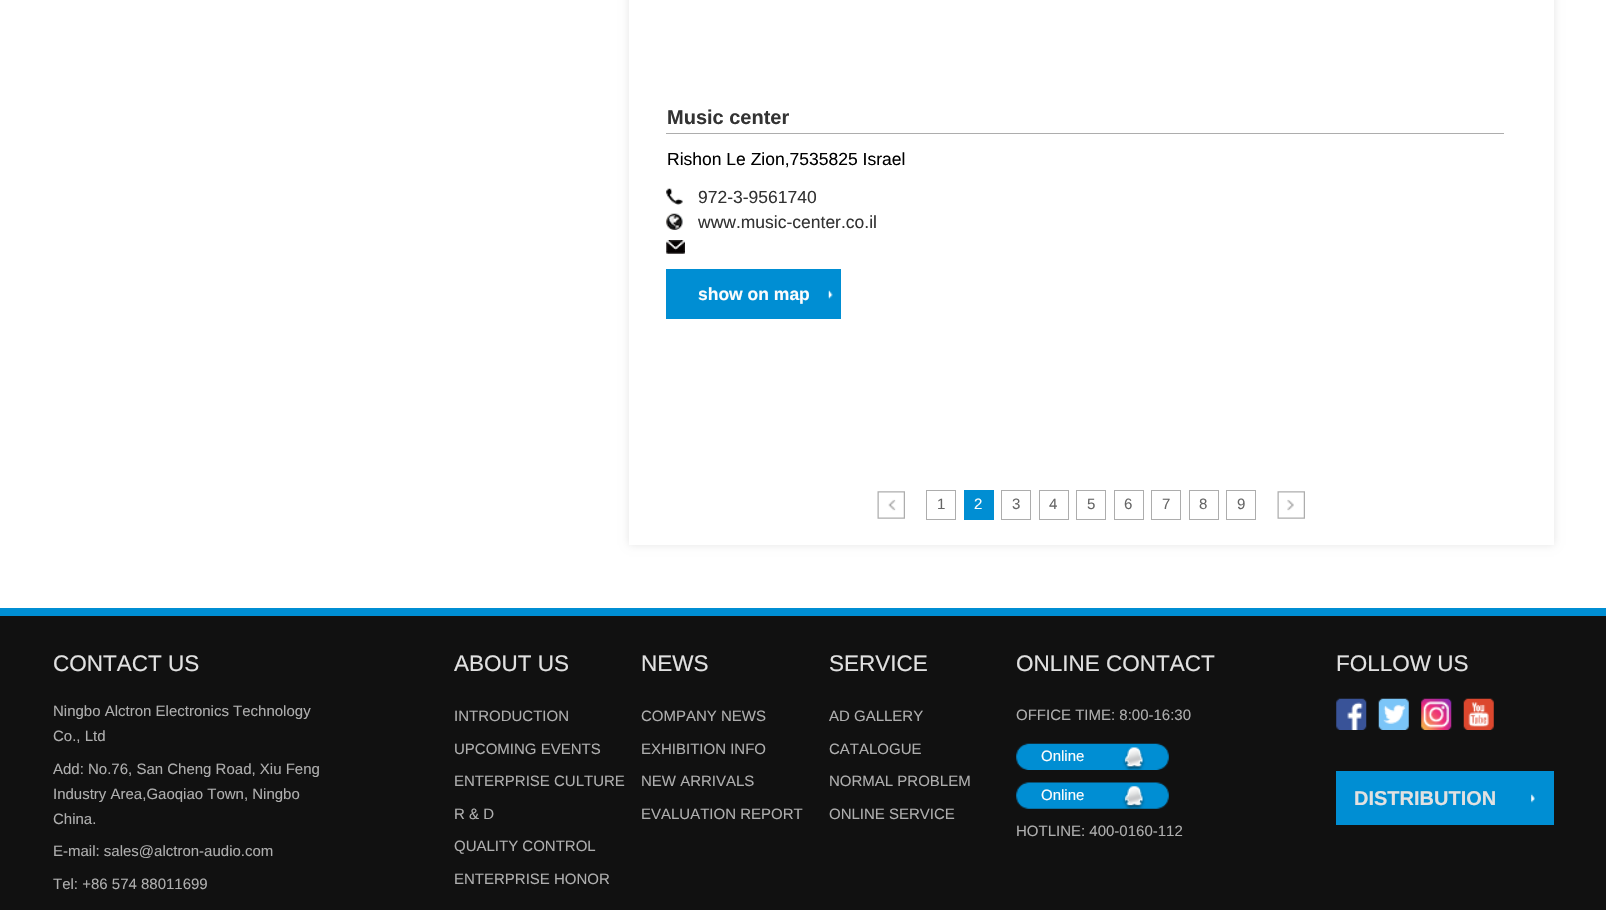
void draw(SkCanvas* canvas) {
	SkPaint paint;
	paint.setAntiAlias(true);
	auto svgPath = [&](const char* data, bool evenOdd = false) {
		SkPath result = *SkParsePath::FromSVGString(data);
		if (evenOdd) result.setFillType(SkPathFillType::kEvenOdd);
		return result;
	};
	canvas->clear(0xffffffff);
	canvas->save();
	canvas->clipPath(svgPath("M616 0H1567V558H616ZM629-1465H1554V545H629Z", true), true);
	paint.setColor(0x1a000000);
	paint.setMaskFilter(SkMaskFilter::MakeBlur(kNormal_SkBlurStyle, 4));
	canvas->drawRect(SkRect::MakeXYWH(629, -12, 925, 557), paint);
	paint.setMaskFilter(nullptr);
	canvas->restore();
	paint.setColor(0xffadadad);
	canvas->drawRect(SkRect::MakeXYWH(666, 133, 838, 1), paint);
	SkFont f1(fontMgr->matchFamilyStyle("Liberation Sans", SkFontStyle::Bold()), 20);
	f1.setSubpixel(true);
	paint.setColor(0xff333333);
	canvas->drawString("Music center", 667, 124, f1, paint);
	SkFont f2(fontMgr->matchFamilyStyle("Liberation Sans", SkFontStyle::Normal()), 17.5);
	f2.setSubpixel(true);
	paint.setColor(0xff000000);
	canvas->drawString("Rishon Le Zion,7535825 Israel", 667, 165, f2, paint);
	canvas->drawImageRect(SkImages::DeferredFromEncodedData(SkData::MakeFromFileName("img1.png")), SkRect::MakeXYWH(666, 188, 17, 17), SkSamplingOptions());
	paint.setColor(0xff333333);
	canvas->drawString("972-3-9561740", 698, 203, f2, paint);
	canvas->drawImageRect(SkImages::DeferredFromEncodedData(SkData::MakeFromFileName("img2.png")), SkRect::MakeXYWH(666, 213, 17, 17), SkSamplingOptions());
	canvas->drawString("www.music-center.co.il", 698, 228, f2, paint);
	canvas->drawImageRect(SkImages::DeferredFromEncodedData(SkData::MakeFromFileName("img3.png")), SkRect::MakeXYWH(666, 240, 19, 14), SkSamplingOptions());
	paint.setColor(0xff008ed3);
	canvas->drawRect(SkRect::MakeXYWH(666, 269, 175, 50), paint);
	canvas->drawImageRect(SkImages::DeferredFromEncodedData(SkData::MakeFromFileName("img4.png")), SkRect::MakeXYWH(828, 290, 5, 9), SkSamplingOptions());
	SkFont f3(fontMgr->matchFamilyStyle("Liberation Sans", SkFontStyle::Bold()), 17.5);
	f3.setSubpixel(true);
	paint.setColor(0xfffcfcfc);
	canvas->drawString("show on map", 698, 300, f3, paint);
	canvas->drawImageRect(SkImages::DeferredFromEncodedData(SkData::MakeFromFileName("img5.png")), SkRect::MakeXYWH(877, 491, 28, 28), SkSamplingOptions());
	paint.setStroke(true);
	paint.setStrokeWidth(1);
	paint.setColor(0xffadadad);
	canvas->drawRect(SkRect::MakeXYWH(926.5, 490.5, 29, 29), paint);
	SkFont f4(fontMgr->matchFamilyStyle("Liberation Sans", SkFontStyle::Normal()), 15);
	f4.setSubpixel(true);
	paint.setStroke(false);
	paint.setColor(0xff666666);
	canvas->drawString("1", 937, 509, f4, paint);
	paint.setColor(0xff008ed3);
	canvas->drawRect(SkRect::MakeXYWH(964, 490, 30, 30), paint);
	paint.setColor(0xfffcfcfc);
	canvas->drawString("2", 974, 509, f4, paint);
	paint.setStroke(true);
	paint.setColor(0xffadadad);
	canvas->drawRect(SkRect::MakeXYWH(1001.5, 490.5, 29, 29), paint);
	paint.setStroke(false);
	paint.setColor(0xff666666);
	canvas->drawString("3", 1012, 509, f4, paint);
	paint.setStroke(true);
	paint.setColor(0xffadadad);
	canvas->drawRect(SkRect::MakeXYWH(1039.5, 490.5, 29, 29), paint);
	paint.setStroke(false);
	paint.setColor(0xff666666);
	canvas->drawString("4", 1049, 509, f4, paint);
	paint.setStroke(true);
	paint.setColor(0xffadadad);
	canvas->drawRect(SkRect::MakeXYWH(1076.5, 490.5, 29, 29), paint);
	paint.setStroke(false);
	paint.setColor(0xff666666);
	canvas->drawString("5", 1087, 509, f4, paint);
	paint.setStroke(true);
	paint.setColor(0xffadadad);
	canvas->drawRect(SkRect::MakeXYWH(1114.5, 490.5, 29, 29), paint);
	paint.setStroke(false);
	paint.setColor(0xff666666);
	canvas->drawString("6", 1124, 509, f4, paint);
	paint.setStroke(true);
	paint.setColor(0xffadadad);
	canvas->drawRect(SkRect::MakeXYWH(1151.5, 490.5, 29, 29), paint);
	paint.setStroke(false);
	paint.setColor(0xff666666);
	canvas->drawString("7", 1162, 509, f4, paint);
	paint.setStroke(true);
	paint.setColor(0xffadadad);
	canvas->drawRect(SkRect::MakeXYWH(1189.5, 490.5, 29, 29), paint);
	paint.setStroke(false);
	paint.setColor(0xff666666);
	canvas->drawString("8", 1199, 509, f4, paint);
	paint.setStroke(true);
	paint.setColor(0xffadadad);
	canvas->drawRect(SkRect::MakeXYWH(1226.5, 490.5, 29, 29), paint);
	paint.setStroke(false);
	paint.setColor(0xff666666);
	canvas->drawString("9", 1237, 509, f4, paint);
	canvas->drawImageRect(SkImages::DeferredFromEncodedData(SkData::MakeFromFileName("img6.png")), SkRect::MakeXYWH(1277, 491, 28, 28), SkSamplingOptions());
	paint.setColor(0xff008ed3);
	canvas->drawRect(SkRect::MakeXYWH(0, 608, 1606, 8), paint);
	paint.setColor(0xff111111);
	canvas->drawRect(SkRect::MakeXYWH(0, 616, 1606, 294), paint);
	SkFont f5(fontMgr->matchFamilyStyle("Liberation Sans", SkFontStyle::Normal()), 22.5);
	f5.setSubpixel(true);
	paint.setColor(0xffe1e1e1);
	canvas->drawString("CONTACT US", 53, 671, f5, paint);
	paint.setColor(0xffaeaeae);
	canvas->drawString("Ningbo Alctron Electronics Technology", 53, 716, f4, paint);
	canvas->drawString("Co., Ltd", 53, 741, f4, paint);
	canvas->drawString("Add: No.76, San Cheng Road, Xiu Feng", 53, 774, f4, paint);
	canvas->drawString("Industry Area,Gaoqiao Town, Ningbo", 53, 799, f4, paint);
	canvas->drawString("China.", 53, 824, f4, paint);
	canvas->drawString("E-mail: sales@alctron-audio.com", 53, 856, f4, paint);
	canvas->drawString("Tel: +86 574 88011699", 53, 889, f4, paint);
	paint.setColor(0xffe1e1e1);
	canvas->drawString("ABOUT US", 454, 671, f5, paint);
	paint.setColor(0xffaeaeae);
	canvas->drawString("INTRODUCTION", 454, 721, f4, paint);
	canvas->drawString("UPCOMING EVENTS", 454, 754, f4, paint);
	canvas->drawString("ENTERPRISE CULTURE", 454, 786, f4, paint);
	canvas->drawString("R & D", 454, 819, f4, paint);
	canvas->drawString("QUALITY CONTROL", 454, 851, f4, paint);
	canvas->drawString("ENTERPRISE HONOR", 454, 884, f4, paint);
	paint.setColor(0xffe1e1e1);
	canvas->drawString("NEWS", 641, 671, f5, paint);
	paint.setColor(0xffaeaeae);
	canvas->drawString("COMPANY NEWS", 641, 721, f4, paint);
	canvas->drawString("EXHIBITION INFO", 641, 754, f4, paint);
	canvas->drawString("NEW ARRIVALS", 641, 786, f4, paint);
	canvas->drawString("EVALUATION REPORT", 641, 819, f4, paint);
	paint.setColor(0xffe1e1e1);
	canvas->drawString("SERVICE", 829, 671, f5, paint);
	paint.setColor(0xffaeaeae);
	canvas->drawString("AD GALLERY", 829, 721, f4, paint);
	canvas->drawString("CATALOGUE", 829, 754, f4, paint);
	canvas->drawString("NORMAL PROBLEM", 829, 786, f4, paint);
	canvas->drawString("ONLINE SERVICE", 829, 819, f4, paint);
	paint.setColor(0xffe1e1e1);
	canvas->drawString("ONLINE CONTACT", 1016, 671, f5, paint);
	paint.setColor(0xffaeaeae);
	canvas->drawString("OFFICE TIME: 8:00-16:30", 1016, 720, f4, paint);
	canvas->drawImageRect(SkImages::DeferredFromEncodedData(SkData::MakeFromFileName("img7.png")), SkRect::MakeXYWH(1016, 743, 153, 27), SkSamplingOptions());
	paint.setColor(0xfffcfcfc);
	canvas->drawString("Online", 1041, 761, f4, paint);
	canvas->drawImageRect(SkImages::DeferredFromEncodedData(SkData::MakeFromFileName("img8.png")), SkRect::MakeXYWH(1016, 782, 153, 27), SkSamplingOptions());
	canvas->drawString("Online", 1041, 800, f4, paint);
	paint.setColor(0xffaeaeae);
	canvas->drawString("HOTLINE: 400-0160-112", 1016, 836, f4, paint);
	paint.setColor(0xffe1e1e1);
	canvas->drawString("FOLLOW US", 1336, 671, f5, paint);
	canvas->drawImageRect(SkImages::DeferredFromEncodedData(SkData::MakeFromFileName("img9.png")), SkRect::MakeXYWH(1336, 698, 31, 32), SkSamplingOptions());
	canvas->drawImageRect(SkImages::DeferredFromEncodedData(SkData::MakeFromFileName("img10.png")), SkRect::MakeXYWH(1378, 698, 31, 32), SkSamplingOptions());
	canvas->drawImageRect(SkImages::DeferredFromEncodedData(SkData::MakeFromFileName("img11.png")), SkRect::MakeXYWH(1421, 698, 31, 32), SkSamplingOptions());
	canvas->drawImageRect(SkImages::DeferredFromEncodedData(SkData::MakeFromFileName("img12.png")), SkRect::MakeXYWH(1463, 698, 31, 32), SkSamplingOptions());
	paint.setColor(0xff008ed3);
	canvas->drawRect(SkRect::MakeXYWH(1336, 771, 218, 54), paint);
	canvas->drawImageRect(SkImages::DeferredFromEncodedData(SkData::MakeFromFileName("img13.png")), SkRect::MakeXYWH(1531, 793, 4, 10), SkSamplingOptions());
	paint.setColor(0xffe1e1e1);
	canvas->drawString("DISTRIBUTION", 1354, 805, f1, paint);
}
